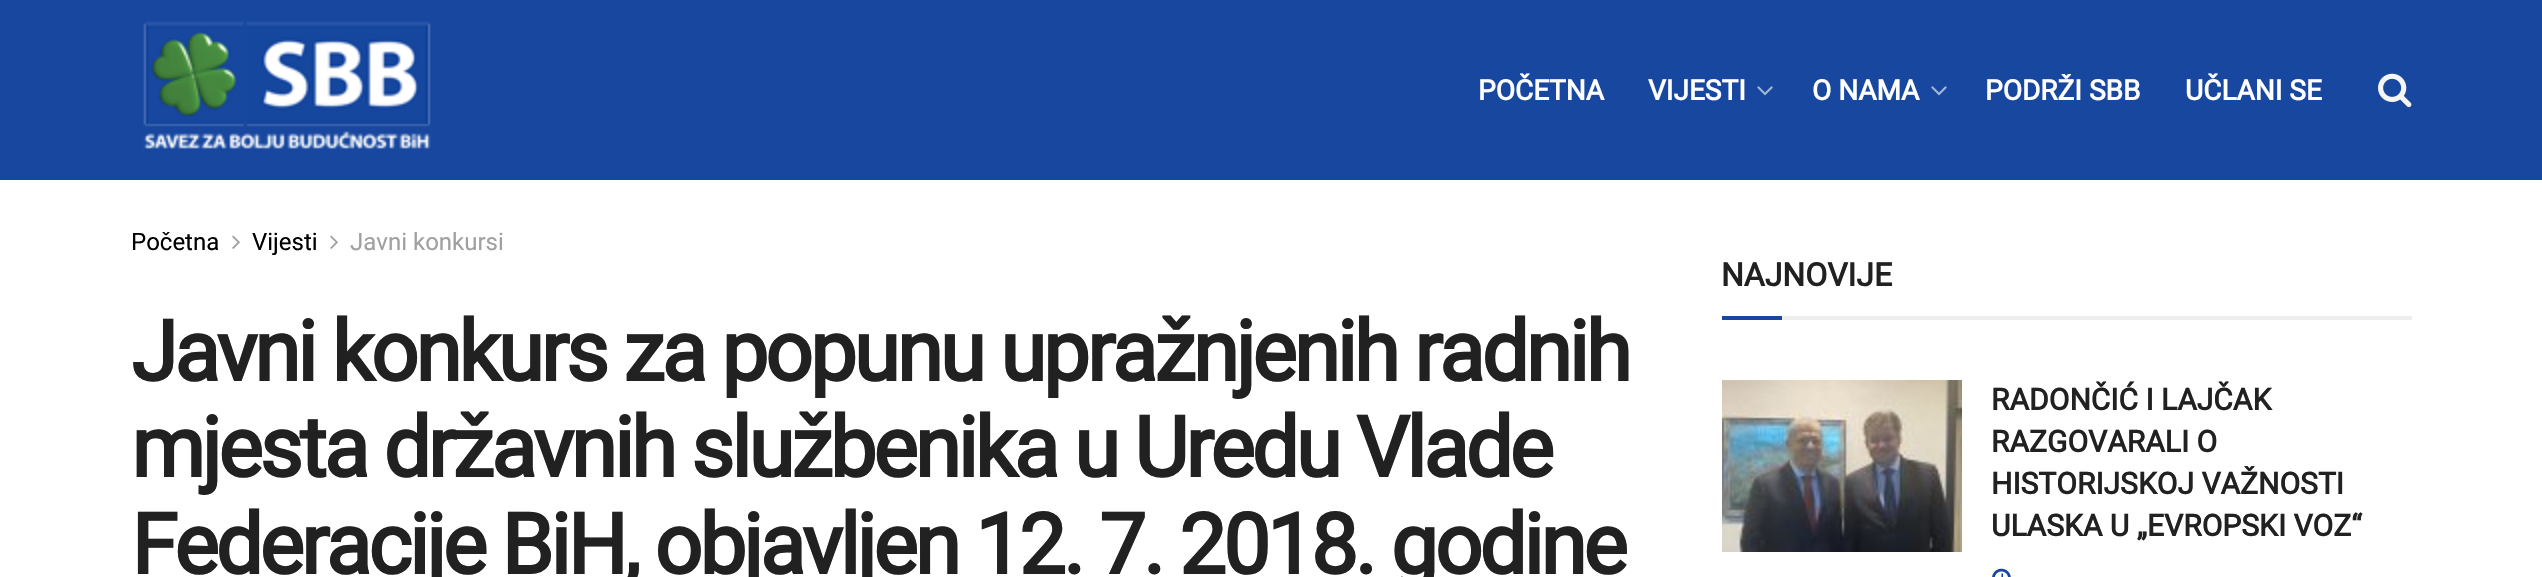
void draw(SkCanvas* canvas) {
	SkPaint paint;
	paint.setAntiAlias(true);
	auto spacedText = [&](const char* s, float x, float y, const SkFont& font, const SkPaint& ink, float letter, float word) {
		std::vector<SkGlyphID> glyphs(font.countText(s, strlen(s), SkTextEncoding::kUTF8));
		std::vector<float> xs(glyphs.size());
		font.textToGlyphs(s, strlen(s), SkTextEncoding::kUTF8, glyphs);
		font.getXPos(glyphs, xs, x);
		float extra = 0;
		for (size_t i = 0; i < glyphs.size(); i++) {
			xs[i] += extra;
			extra += letter + word * (glyphs[i] == font.unicharToGlyph(' '));
		}
		canvas->drawTextBlob(SkTextBlob::MakeFromPosHGlyphs(glyphs, xs, y, font), 0, 0, ink);
	};
	canvas->clear(0xffffffff);
	paint.setColor(0xff17479e);
	canvas->drawRect(SkRect::MakeXYWH(0, 0, 2542, 180), paint);
	canvas->drawImageRect(SkImages::DeferredFromEncodedData(SkData::MakeFromFileName("img1.png")), SkRect::MakeXYWH(143, 21, 288, 129), SkSamplingOptions());
	SkFont f1(fontMgr->matchFamilyStyle("Roboto", SkFontStyle::Bold()), 28);
	f1.setSubpixel(true);
	paint.setColor(0xffffffff);
	canvas->drawString("POČETNA", 1478, 100, f1, paint);
	canvas->drawString("VIJESTI", 1648, 100, f1, paint);
	canvas->drawImageRect(SkImages::DeferredFromEncodedData(SkData::MakeFromFileName("img2.png")), SkRect::MakeXYWH(1757, 86, 16, 10), SkSamplingOptions());
	canvas->drawString("O NAMA", 1812, 100, f1, paint);
	canvas->drawImageRect(SkImages::DeferredFromEncodedData(SkData::MakeFromFileName("img2.png")), SkRect::MakeXYWH(1931, 86, 16, 10), SkSamplingOptions());
	canvas->drawString("PODRŽI SBB", 1985, 100, f1, paint);
	canvas->drawString("UČLANI SE", 2185, 100, f1, paint);
	canvas->drawImageRect(SkImages::DeferredFromEncodedData(SkData::MakeFromFileName("img3.png")), SkRect::MakeXYWH(2378, 73, 34, 35), SkSamplingOptions());
	SkFont f2(fontMgr->matchFamilyStyle("Roboto", SkFontStyle::Normal()), 24);
	f2.setSubpixel(true);
	paint.setColor(0xff000000);
	canvas->drawString("Početna", 131, 250, f2, paint);
	canvas->drawImageRect(SkImages::DeferredFromEncodedData(SkData::MakeFromFileName("img4.png")), SkRect::MakeXYWH(232, 235, 8, 14), SkSamplingOptions());
	canvas->drawString("Vijesti", 252, 250, f2, paint);
	canvas->drawImageRect(SkImages::DeferredFromEncodedData(SkData::MakeFromFileName("img4.png")), SkRect::MakeXYWH(330, 235, 8, 14), SkSamplingOptions());
	paint.setColor(0xffa0a0a0);
	canvas->drawString("Javni konkursi", 350, 250, f2, paint);
	SkFont f3(fontMgr->matchFamilyStyle("Roboto", SkFontStyle::Bold()), 84);
	f3.setSubpixel(true);
	paint.setColor(0xff212121);
	spacedText("Javni konkurs za popunu upražnjenih radnih", 131, 381, f3, paint, -3.35, 0);
	spacedText("mjesta državnih službenika u Uredu Vlade", 131, 477, f3, paint, -3.35, 0);
	spacedText("Federacije BiH, objavljen 12. 7. 2018. godine", 131, 574, f3, paint, -3.35, 0);
	paint.setColor(0xffeeeeee);
	canvas->drawRect(SkRect::MakeXYWH(1782, 316, 630, 4), paint);
	SkFont f4(fontMgr->matchFamilyStyle("Roboto", SkFontStyle::Bold()), 32);
	f4.setSubpixel(true);
	paint.setColor(0xff212121);
	canvas->drawString("NAJNOVIJE", 1721, 286, f4, paint);
	paint.setColor(0xff17479e);
	canvas->drawRect(SkRect::MakeXYWH(1722, 316, 60, 4), paint);
	canvas->drawImageRect(SkImages::DeferredFromEncodedData(SkData::MakeFromFileName("img5.png")), SkRect::MakeXYWH(1722, 380, 240, 172), SkSamplingOptions());
	SkFont f5(fontMgr->matchFamilyStyle("Roboto", SkFontStyle::Bold()), 30);
	f5.setSubpixel(true);
	paint.setColor(0xff212121);
	canvas->drawString("RADONČIĆ I LAJČAK", 1991, 410, f5, paint);
	canvas->drawString("RAZGOVARALI O", 1991, 452, f5, paint);
	canvas->drawString("HISTORIJSKOJ VAŽNOSTI", 1991, 494, f5, paint);
	canvas->drawString("ULASKA U „EVROPSKI VOZ“", 1991, 536, f5, paint);
	canvas->drawImageRect(SkImages::DeferredFromEncodedData(SkData::MakeFromFileName("img6.png")), SkRect::MakeXYWH(1992, 568, 19, 9), SkSamplingOptions());
}
